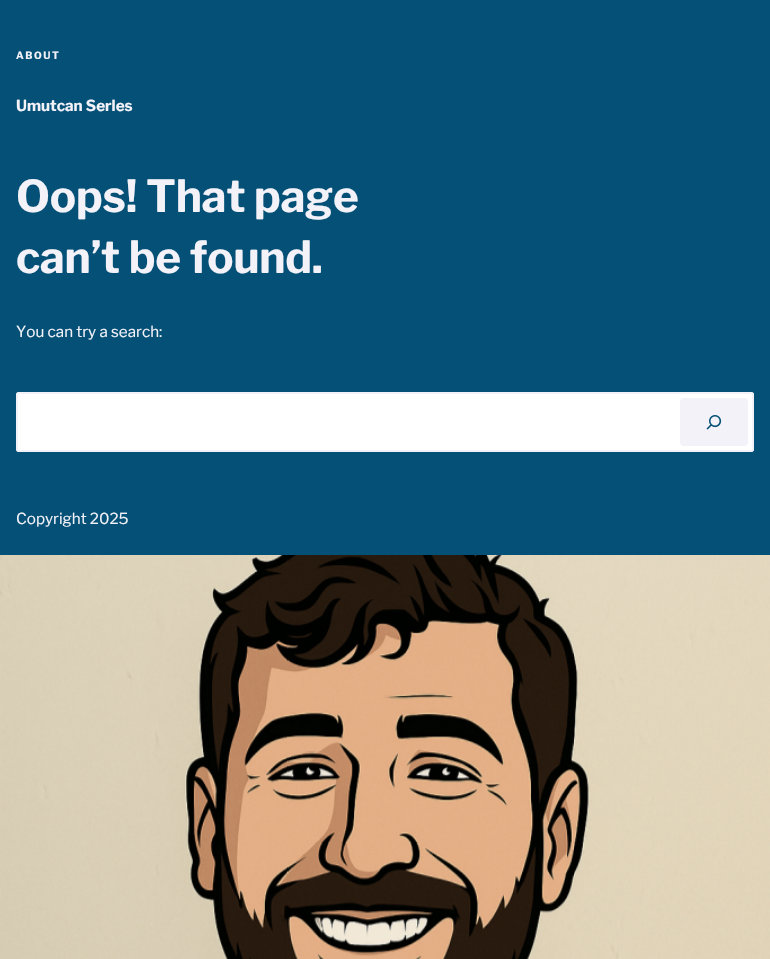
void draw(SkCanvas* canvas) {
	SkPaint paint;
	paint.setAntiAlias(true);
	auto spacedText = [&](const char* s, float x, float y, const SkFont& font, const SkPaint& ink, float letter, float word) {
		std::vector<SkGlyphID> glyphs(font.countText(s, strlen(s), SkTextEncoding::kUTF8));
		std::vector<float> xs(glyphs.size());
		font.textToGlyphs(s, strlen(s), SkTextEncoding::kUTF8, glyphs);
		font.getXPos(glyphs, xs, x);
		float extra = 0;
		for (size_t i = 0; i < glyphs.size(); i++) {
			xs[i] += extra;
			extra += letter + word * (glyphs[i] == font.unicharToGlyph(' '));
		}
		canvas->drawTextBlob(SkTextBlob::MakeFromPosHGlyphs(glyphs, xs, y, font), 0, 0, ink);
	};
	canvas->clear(0xff045076);
	SkFont f1(fontMgr->matchFamilyStyle("Libre Franklin", SkFontStyle::Bold()), 10);
	f1.setSubpixel(true);
	paint.setColor(0xfff3f2f9);
	spacedText("ABOUT", 16, 59, f1, paint, 1.5, 0);
	SkFont f2(fontMgr->matchFamilyStyle("Libre Franklin", SkFontStyle::Bold()), 15.25);
	f2.setSubpixel(true);
	canvas->drawString("Umutcan Serles", 16, 111, f2, paint);
	SkFont f3(fontMgr->matchFamilyStyle("Libre Franklin", SkFontStyle::Bold()), 44);
	f3.setSubpixel(true);
	spacedText("Oops! That page", 16, 212, f3, paint, -0.2, 0);
	spacedText("can’t be found.", 16, 273, f3, paint, -0.2, 0);
	SkFont f4(fontMgr->matchFamilyStyle("Libre Franklin", SkFontStyle::Normal()), 15.25);
	f4.setSubpixel(true);
	canvas->drawString("You can try a search:", 16, 337, f4, paint);
	paint.setStroke(true);
	paint.setStrokeWidth(1);
	canvas->drawRoundRect(SkRect::MakeXYWH(16.5, 392.5, 737, 59), 1.5, 1.5, paint);
	paint.setStroke(false);
	paint.setColor(0xffffffff);
	canvas->drawRect(SkRect::MakeXYWH(17.5, 393.5, 735, 57), paint);
	paint.setStroke(true);
	paint.setColor(0xfff3f2f9);
	canvas->drawRect(SkRect::MakeXYWH(17.5, 393.5, 735, 57), paint);
	paint.setStroke(false);
	canvas->drawRoundRect(SkRect::MakeXYWH(680, 398, 68, 48), 4, 4, paint);
	canvas->drawImageRect(SkImages::DeferredFromEncodedData(SkData::MakeFromFileName("img1.png")), SkRect::MakeXYWH(706, 415, 16, 15), SkSamplingOptions());
	canvas->drawString("Copyright 2025", 16, 524, f4, paint);
	canvas->drawImageRect(SkImages::DeferredFromEncodedData(SkData::MakeFromFileName("img2.png")), SkRect::MakeXYWH(0, 555, 770, 404), SkSamplingOptions());
}
